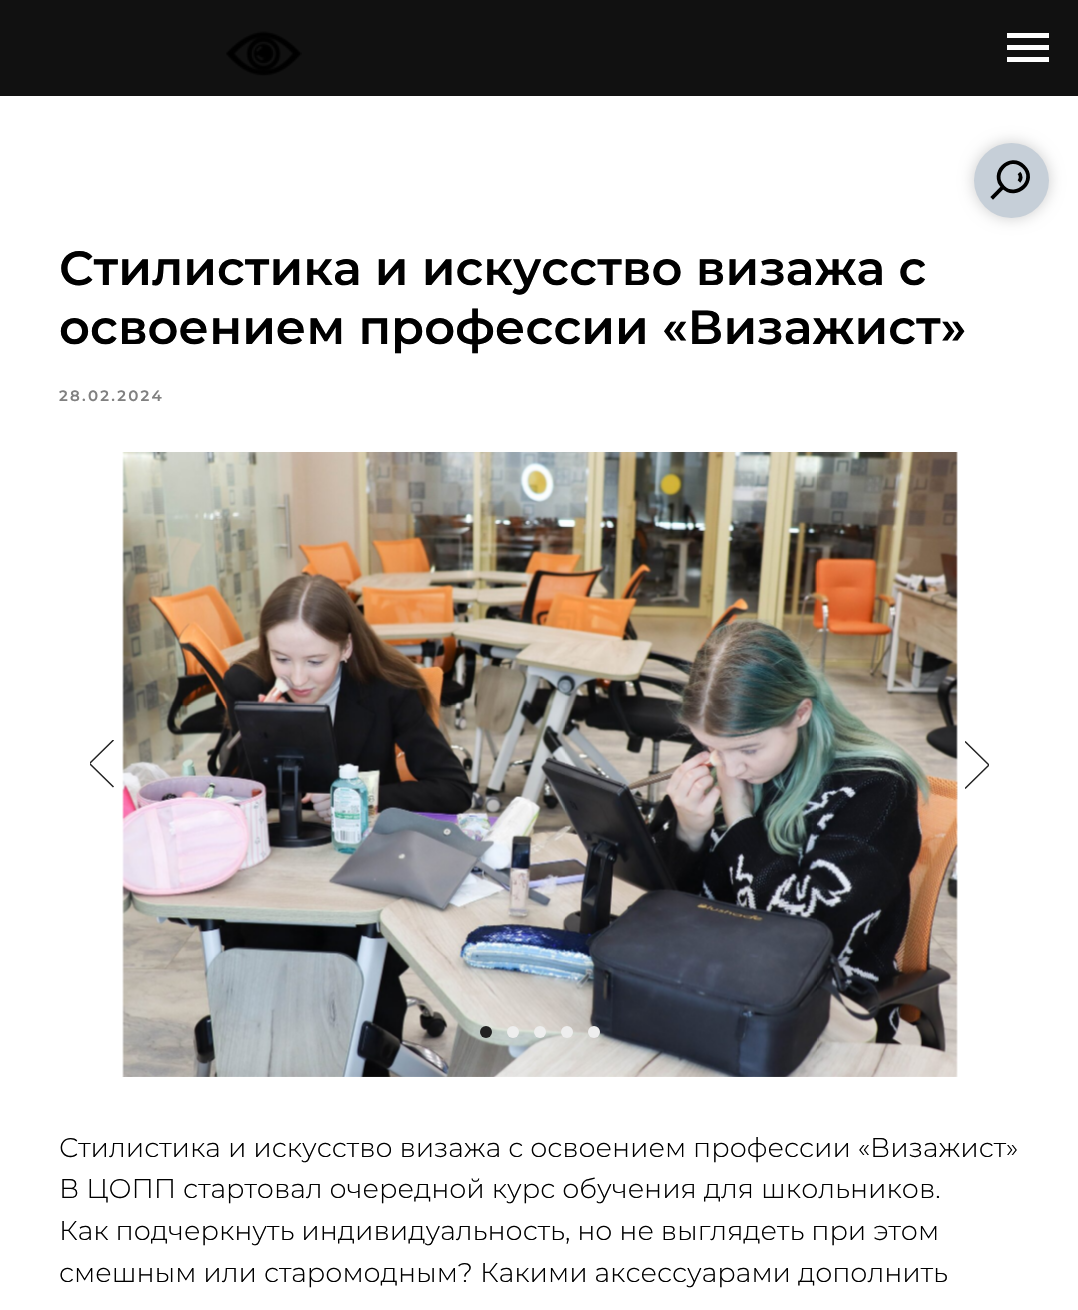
void draw(SkCanvas* canvas) {
	SkPaint paint;
	paint.setAntiAlias(true);
	auto spacedText = [&](const char* s, float x, float y, const SkFont& font, const SkPaint& ink, float letter, float word) {
		std::vector<SkGlyphID> glyphs(font.countText(s, strlen(s), SkTextEncoding::kUTF8));
		std::vector<float> xs(glyphs.size());
		font.textToGlyphs(s, strlen(s), SkTextEncoding::kUTF8, glyphs);
		font.getXPos(glyphs, xs, x);
		float extra = 0;
		for (size_t i = 0; i < glyphs.size(); i++) {
			xs[i] += extra;
			extra += letter + word * (glyphs[i] == font.unicharToGlyph(' '));
		}
		canvas->drawTextBlob(SkTextBlob::MakeFromPosHGlyphs(glyphs, xs, y, font), 0, 0, ink);
	};
	auto svgPath = [&](const char* data, bool evenOdd = false) {
		SkPath result = *SkParsePath::FromSVGString(data);
		if (evenOdd) result.setFillType(SkPathFillType::kEvenOdd);
		return result;
	};
	canvas->clear(0xffffffff);
	paint.setColor(0xff111111);
	canvas->drawRect(SkRect::MakeXYWH(0, 0, 1078, 96), paint);
	canvas->drawImageRect(SkImages::DeferredFromEncodedData(SkData::MakeFromFileName("img1.png")), SkRect::MakeXYWH(226, 31, 76, 45), SkSamplingOptions());
	paint.setColor(0xffffffff);
	canvas->drawRect(SkRect::MakeXYWH(1007, 33, 42, 5), paint);
	canvas->drawRect(SkRect::MakeXYWH(1007, 45, 42, 5), paint);
	canvas->drawRect(SkRect::MakeXYWH(1007, 57, 42, 5), paint);
	paint.setColor(0x33000000);
	paint.setMaskFilter(SkMaskFilter::MakeBlur(kNormal_SkBlurStyle, 7.5));
	canvas->drawRoundRect(SkRect::MakeXYWH(974, 143, 75, 75), 37.5, 37.5, paint);
	paint.setMaskFilter(nullptr);
	paint.setColor(0xffc6cfd8);
	canvas->drawCircle(1011.5, 180.5, 37.5, paint);
	paint.setStroke(true);
	paint.setStrokeWidth(3.8);
	paint.setStrokeCap(SkPaint::kSquare_Cap);
	paint.setColor(0xff000000);
	canvas->drawPath(svgPath("M1002.5 187.5L993 197"), paint);
	paint.setStrokeCap(SkPaint::kButt_Cap);
	canvas->drawPath(svgPath("M1023.5 166.5C1037.5 180 1016.5 200.5 1003 187C989.5 173.5 1010 153 1023.5 166.5ZM1019 173C1021.5 175.5 1021 179.5 1019 181.5"), paint);
	SkFont f1(fontMgr->matchFamilyStyle("Montserrat", SkFontStyle(600, SkFontStyle::kNormal_Width, SkFontStyle::kUpright_Slant)), 48);
	f1.setSubpixel(true);
	paint.setStroke(false);
	canvas->drawString("Стилистика и искусство визажа с", 59, 285, f1, paint);
	canvas->drawString("освоением профессии «Визажист»", 59, 344, f1, paint);
	SkFont f2(fontMgr->matchFamilyStyle("Montserrat", SkFontStyle(600, SkFontStyle::kNormal_Width, SkFontStyle::kUpright_Slant)), 15);
	f2.setSubpixel(true);
	paint.setColor(0xff808080);
	spacedText("28.02.2024", 59, 401, f2, paint, 2.25, 0);
	canvas->drawImageRect(SkImages::DeferredFromEncodedData(SkData::MakeFromFileName("img2.png")), SkRect::MakeXYWH(122, 452, 836, 625), SkSamplingOptions());
	canvas->save();
	canvas->clipRect(SkRect::MakeXYWH(90, 740, 26, 49));
	paint.setStroke(true);
	paint.setStrokeWidth(1.5);
	paint.setColor(0xff222222);
	canvas->drawPath(svgPath("M113.5 787L89.5 763.5L113.5 740"), paint);
	canvas->restore();
	canvas->save();
	canvas->clipRect(SkRect::MakeXYWH(965, 741, 24, 48));
	canvas->drawPath(svgPath("M965 741.5L989 765L965 788.5"), paint);
	canvas->restore();
	paint.setStroke(false);
	canvas->drawCircle(486, 1032, 6, paint);
	paint.setColor(0xffeeeeee);
	canvas->drawCircle(513, 1032, 6, paint);
	canvas->drawCircle(540, 1032, 6, paint);
	canvas->drawCircle(567, 1032, 6, paint);
	canvas->drawCircle(594, 1032, 6, paint);
	SkFont f3(fontMgr->matchFamilyStyle("Montserrat", SkFontStyle(300, SkFontStyle::kNormal_Width, SkFontStyle::kUpright_Slant)), 27);
	f3.setSubpixel(true);
	paint.setColor(0xff000000);
	canvas->drawString("Стилистика и искусство визажа с освоением профессии «Визажист»", 59, 1157, f3, paint);
	canvas->drawString("В ЦОПП стартовал очередной курс обучения для школьников.", 59, 1198, f3, paint);
	canvas->drawString("Как подчеркнуть индивидуальность, но не выглядеть при этом", 59, 1240, f3, paint);
	canvas->drawString("смешным или старомодным? Какими аксессуарами дополнить", 59, 1282, f3, paint);
}
